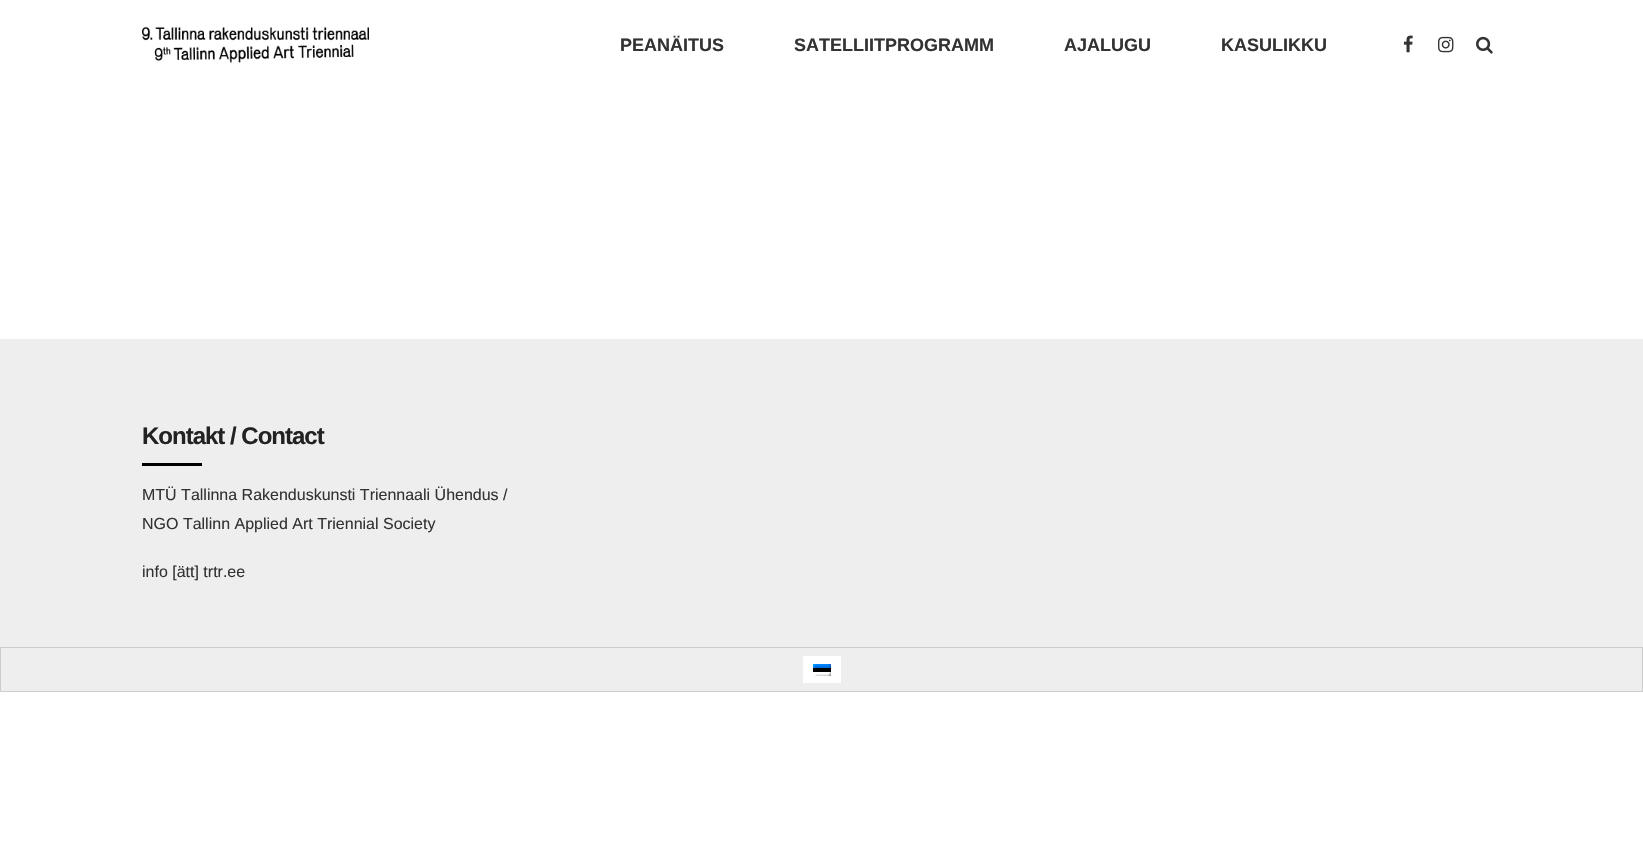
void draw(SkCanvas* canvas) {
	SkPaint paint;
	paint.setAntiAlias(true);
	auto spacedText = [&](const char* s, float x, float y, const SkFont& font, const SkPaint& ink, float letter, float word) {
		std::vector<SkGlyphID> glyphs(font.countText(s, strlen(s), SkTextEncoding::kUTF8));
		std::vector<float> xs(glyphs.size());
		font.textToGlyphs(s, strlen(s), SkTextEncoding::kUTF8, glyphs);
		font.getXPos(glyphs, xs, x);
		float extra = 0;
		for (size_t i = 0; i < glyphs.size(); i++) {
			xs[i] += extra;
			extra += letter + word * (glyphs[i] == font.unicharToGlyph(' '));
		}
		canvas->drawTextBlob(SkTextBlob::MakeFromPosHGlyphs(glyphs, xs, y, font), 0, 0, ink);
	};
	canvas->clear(0xffffffff);
	canvas->drawImageRect(SkImages::DeferredFromEncodedData(SkData::MakeFromFileName("img1.png")), SkRect::MakeXYWH(142, 26, 227, 37), SkSamplingOptions());
	SkFont f1(fontMgr->matchFamilyStyle("Arimo", SkFontStyle::Bold()), 18);
	f1.setSubpixel(true);
	paint.setColor(0xff333333);
	canvas->drawString("PEANÄITUS", 620, 51, f1, paint);
	canvas->drawString("SATELLIITPROGRAMM", 794, 51, f1, paint);
	canvas->drawString("AJALUGU", 1064, 51, f1, paint);
	canvas->drawString("KASULIKKU", 1221, 51, f1, paint);
	canvas->drawImageRect(SkImages::DeferredFromEncodedData(SkData::MakeFromFileName("img2.png")), SkRect::MakeXYWH(1403, 35, 10, 18), SkSamplingOptions());
	canvas->drawImageRect(SkImages::DeferredFromEncodedData(SkData::MakeFromFileName("img3.png")), SkRect::MakeXYWH(1438, 36, 16, 17), SkSamplingOptions());
	canvas->drawImageRect(SkImages::DeferredFromEncodedData(SkData::MakeFromFileName("img4.png")), SkRect::MakeXYWH(1476, 36, 17, 18), SkSamplingOptions());
	paint.setColor(0xffeeeeee);
	canvas->drawRect(SkRect::MakeXYWH(0, 339, 1643, 308), paint);
	SkFont f2(fontMgr->matchFamilyStyle("Arimo", SkFontStyle::Bold()), 24);
	f2.setSubpixel(true);
	paint.setColor(0xff222222);
	spacedText("Kontakt / Contact", 142, 444, f2, paint, -1, 0);
	paint.setColor(0xff000000);
	canvas->drawRect(SkRect::MakeXYWH(142, 463, 60, 3), paint);
	SkFont f3(fontMgr->matchFamilyStyle("Arimo", SkFontStyle::Normal()), 16);
	f3.setSubpixel(true);
	paint.setColor(0xff333333);
	canvas->drawString("MTÜ Tallinna Rakenduskunsti Triennaali Ühendus /", 142, 500, f3, paint);
	canvas->drawString("NGO Tallinn Applied Art Triennial Society", 142, 529, f3, paint);
	canvas->drawString("info [ätt] trtr.ee", 142, 577, f3, paint);
	paint.setColor(0xffeeeeee);
	canvas->drawRect(SkRect::MakeXYWH(0.5, 647.5, 1642, 44), paint);
	paint.setStroke(true);
	paint.setStrokeWidth(1);
	paint.setColor(0xffcdcdcd);
	canvas->drawRect(SkRect::MakeXYWH(0.5, 647.5, 1642, 44), paint);
	paint.setStroke(false);
	paint.setColor(0xffffffff);
	canvas->drawRect(SkRect::MakeXYWH(803, 656, 38, 27), paint);
	canvas->drawImageRect(SkImages::DeferredFromEncodedData(SkData::MakeFromFileName("img5.png")), SkRect::MakeXYWH(813, 664, 18, 12), SkSamplingOptions());
}
